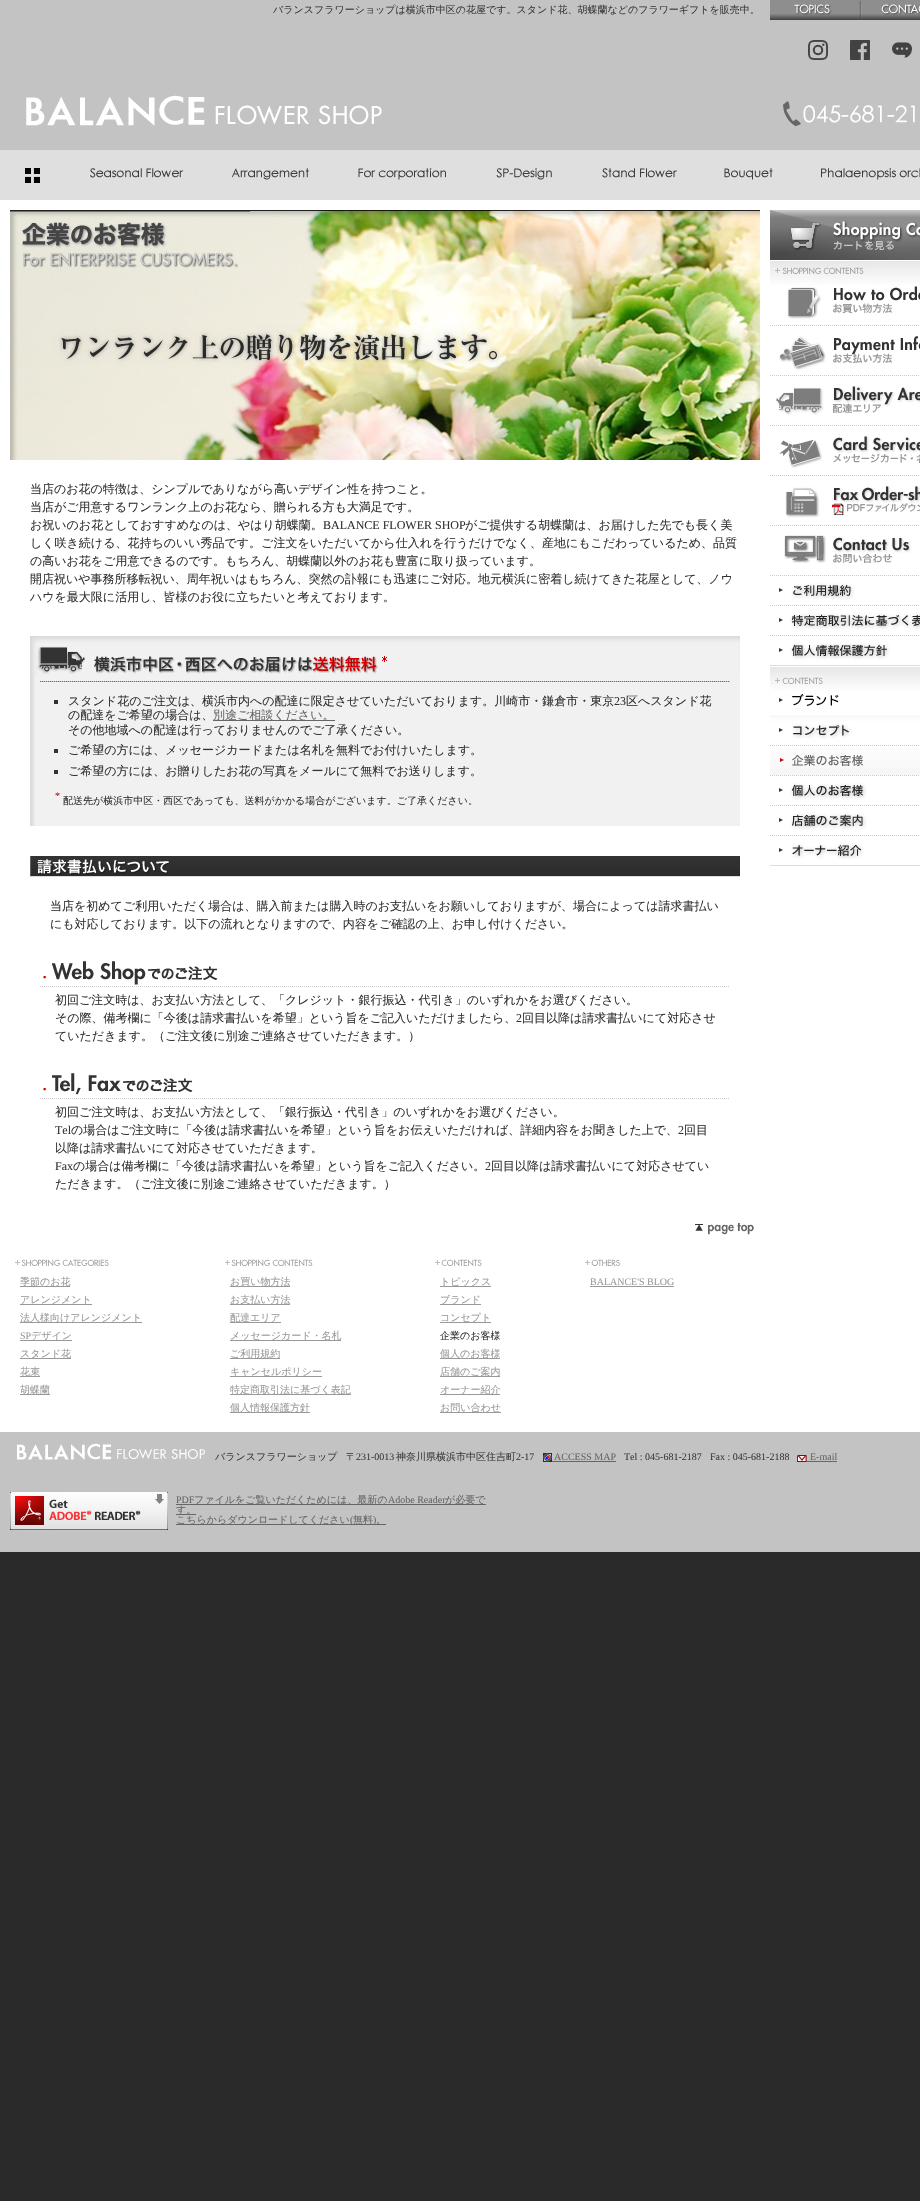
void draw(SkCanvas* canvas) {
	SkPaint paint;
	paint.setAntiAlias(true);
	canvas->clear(0xff2a2a2a);
	paint.setColor(0xffffffff);
	canvas->drawRect(SkRect::MakeXYWH(0, 200, 920, 1232), paint);
	paint.setColor(0xffc3c3c3);
	canvas->drawRect(SkRect::MakeXYWH(0, 0, 920, 150), paint);
	SkFont f1(fontMgr->matchFamilyStyle("WenQuanYi Zen Hei", SkFontStyle(500, SkFontStyle::kNormal_Width, SkFontStyle::kUpright_Slant)), 10);
	f1.setSubpixel(true);
	paint.setColor(0xff3c3c3c);
	canvas->drawString("バランスフラワーショップは横浜市中区の花屋です。スタンド花、胡蝶蘭などのフラワーギフトを販売中。", 273, 13, f1, paint);
	canvas->drawImageRect(SkImages::DeferredFromEncodedData(SkData::MakeFromFileName("img1.png")), SkRect::MakeXYWH(770, 0, 90, 20), SkSamplingOptions());
	canvas->drawImageRect(SkImages::DeferredFromEncodedData(SkData::MakeFromFileName("img2.png")), SkRect::MakeXYWH(860, 0, 60, 20), SkSamplingOptions());
	canvas->drawImageRect(SkImages::DeferredFromEncodedData(SkData::MakeFromFileName("img3.png")), SkRect::MakeXYWH(808, 40, 20, 20), SkSamplingOptions());
	canvas->drawImageRect(SkImages::DeferredFromEncodedData(SkData::MakeFromFileName("img4.png")), SkRect::MakeXYWH(850, 40, 20, 20), SkSamplingOptions());
	canvas->drawImageRect(SkImages::DeferredFromEncodedData(SkData::MakeFromFileName("img5.png")), SkRect::MakeXYWH(892, 42, 20, 16), SkSamplingOptions());
	canvas->drawImageRect(SkImages::DeferredFromEncodedData(SkData::MakeFromFileName("img6.png")), SkRect::MakeXYWH(783, 101, 132, 26), SkSamplingOptions());
	canvas->drawImageRect(SkImages::DeferredFromEncodedData(SkData::MakeFromFileName("img7.png")), SkRect::MakeXYWH(26, 95, 356, 31), SkSamplingOptions());
	canvas->drawImageRect(SkImages::DeferredFromEncodedData(SkData::MakeFromFileName("img8.png")), SkRect::MakeXYWH(0, 150, 65, 50), SkSamplingOptions());
	canvas->drawImageRect(SkImages::DeferredFromEncodedData(SkData::MakeFromFileName("img9.png")), SkRect::MakeXYWH(65, 150, 140, 50), SkSamplingOptions());
	canvas->drawImageRect(SkImages::DeferredFromEncodedData(SkData::MakeFromFileName("img10.png")), SkRect::MakeXYWH(205, 150, 130, 50), SkSamplingOptions());
	canvas->drawImageRect(SkImages::DeferredFromEncodedData(SkData::MakeFromFileName("img11.png")), SkRect::MakeXYWH(335, 150, 135, 50), SkSamplingOptions());
	canvas->drawImageRect(SkImages::DeferredFromEncodedData(SkData::MakeFromFileName("img12.png")), SkRect::MakeXYWH(470, 150, 110, 50), SkSamplingOptions());
	canvas->drawImageRect(SkImages::DeferredFromEncodedData(SkData::MakeFromFileName("img13.png")), SkRect::MakeXYWH(580, 150, 120, 50), SkSamplingOptions());
	canvas->drawImageRect(SkImages::DeferredFromEncodedData(SkData::MakeFromFileName("img14.png")), SkRect::MakeXYWH(700, 150, 100, 50), SkSamplingOptions());
	canvas->drawImageRect(SkImages::DeferredFromEncodedData(SkData::MakeFromFileName("img15.png")), SkRect::MakeXYWH(800, 150, 120, 50), SkSamplingOptions());
	canvas->drawImageRect(SkImages::DeferredFromEncodedData(SkData::MakeFromFileName("img16.png")), SkRect::MakeXYWH(10, 210, 750, 60), SkSamplingOptions());
	canvas->drawImageRect(SkImages::DeferredFromEncodedData(SkData::MakeFromFileName("img17.png")), SkRect::MakeXYWH(10, 270, 750, 190), SkSamplingOptions());
	SkFont f2(fontMgr->matchFamilyStyle("WenQuanYi Zen Hei", SkFontStyle(500, SkFontStyle::kNormal_Width, SkFontStyle::kUpright_Slant)), 12);
	f2.setSubpixel(true);
	paint.setColor(0xff333333);
	canvas->drawString("当店のお花の特徴は、シンプルでありながら高いデザイン性を持つこと。", 30, 493, f2, paint);
	canvas->drawString("当店がご用意するワンランク上のお花なら、贈られる方も大満足です。", 30, 511, f2, paint);
	canvas->drawString("お祝いのお花としておすすめなのは、やはり胡蝶蘭。", 30, 529, f2, paint);
	SkFont f3(fontMgr->matchFamilyStyle("Liberation Serif", SkFontStyle::Normal()), 12);
	f3.setSubpixel(true);
	canvas->drawString("BALANCE FLOWER SHOP", 323, 529, f3, paint);
	canvas->drawString("がご提供する胡蝶蘭は、お届けした先でも長く美", 465, 529, f2, paint);
	canvas->drawString("しく咲き続ける、花持ちのいい秀品です。ご注文をいただいてから仕入れを行うだけでなく、産地にもこだわっているため、品質", 30, 547, f2, paint);
	canvas->drawString("の高いお花をご用意できるのです。もちろん、胡蝶蘭以外のお花も豊富に取り扱っています。", 30, 565, f2, paint);
	canvas->drawString("開店祝いや事務所移転祝い、周年祝いはもちろん、突然の訃報にも迅速にご対応。地元横浜に密着し続けてきた花屋として、ノウ", 30, 583, f2, paint);
	canvas->drawString("ハウを最大限に活用し、皆様のお役に立ちたいと考えております。", 30, 601, f2, paint);
	canvas->drawImageRect(SkImages::DeferredFromEncodedData(SkData::MakeFromFileName("img18.png")), SkRect::MakeXYWH(30, 636, 710, 40), SkSamplingOptions());
	paint.setColor(0xfff1f1f1);
	canvas->drawRect(SkRect::MakeXYWH(35, 676, 705, 150), paint);
	canvas->drawImageRect(SkImages::DeferredFromEncodedData(SkData::MakeFromFileName("img19.png")), SkRect::MakeXYWH(30, 676, 5, 150), SkSamplingOptions());
	canvas->drawImageRect(SkImages::DeferredFromEncodedData(SkData::MakeFromFileName("img20.png")), SkRect::MakeXYWH(40, 681, 690, 1), SkSamplingOptions());
	paint.setColor(0xff333333);
	canvas->drawRect(SkRect::MakeXYWH(54, 700, 4, 4), paint);
	canvas->drawString("スタンド花のご注文は、横浜市内への配達に限定させていただいております。川崎市・鎌倉市・東京", 68, 705, f2, paint);
	canvas->drawString("23", 614, 705, f3, paint);
	canvas->drawString("区へスタンド花", 626, 705, f2, paint);
	canvas->drawString("の配達をご希望の場合は、", 68, 719, f2, paint);
	paint.setColor(0xff666666);
	canvas->drawRect(SkRect::MakeXYWH(213, 720, 122, 1), paint);
	canvas->drawString("別途ご相談ください。", 213, 719, f2, paint);
	paint.setColor(0xff333333);
	canvas->drawString("その他地域への配達は行っておりませんのでご了承ください。", 68, 734, f2, paint);
	canvas->drawRect(SkRect::MakeXYWH(54, 749, 4, 4), paint);
	canvas->drawString("ご希望の方には、メッセージカードまたは名札を無料でお付けいたします。", 68, 754, f2, paint);
	canvas->drawRect(SkRect::MakeXYWH(54, 770, 4, 4), paint);
	canvas->drawString("ご希望の方には、お贈りしたお花の写真をメールにて無料でお送りします。", 68, 775, f2, paint);
	SkFont f4(fontMgr->matchFamilyStyle("Liberation Serif", SkFontStyle::Normal()), 10);
	f4.setSubpixel(true);
	paint.setColor(0xffcc0000);
	canvas->drawString("*", 55, 799, f4, paint);
	paint.setColor(0xff333333);
	canvas->drawString("配送先が横浜市中区・西区であっても、送料がかかる場合がございます。ご了承ください。", 63, 804, f1, paint);
	canvas->drawImageRect(SkImages::DeferredFromEncodedData(SkData::MakeFromFileName("img21.png")), SkRect::MakeXYWH(30, 856, 710, 21), SkSamplingOptions());
	canvas->drawString("当店を初めてご利用いただく場合は、購入前または購入時のお支払いをお願いしておりますが、場合によっては請求書払い", 50, 910, f2, paint);
	canvas->drawString("にも対応しております。以下の流れとなりますので、内容をご確認の上、お申し付けください。", 50, 928, f2, paint);
	canvas->drawImageRect(SkImages::DeferredFromEncodedData(SkData::MakeFromFileName("img22.png")), SkRect::MakeXYWH(43, 961, 175, 24), SkSamplingOptions());
	canvas->drawImageRect(SkImages::DeferredFromEncodedData(SkData::MakeFromFileName("img23.png")), SkRect::MakeXYWH(40, 986, 689, 1), SkSamplingOptions());
	canvas->drawString("初回ご注文時は、お支払い方法として、「クレジット・銀行振込・代引き」のいずれかをお選びください。", 55, 1004, f2, paint);
	canvas->drawString("その際、備考欄に「今後は請求書払いを希望」という旨をご記入いただけましたら、", 55, 1022, f2, paint);
	canvas->drawString("2", 516, 1022, f3, paint);
	canvas->drawString("回目以降は請求書払いにて対応させ", 522, 1022, f2, paint);
	canvas->drawString("ていただきます。（ご注文後に別途ご連絡させていただきます。）", 55, 1040, f2, paint);
	canvas->drawImageRect(SkImages::DeferredFromEncodedData(SkData::MakeFromFileName("img24.png")), SkRect::MakeXYWH(43, 1073, 150, 22), SkSamplingOptions());
	canvas->drawImageRect(SkImages::DeferredFromEncodedData(SkData::MakeFromFileName("img23.png")), SkRect::MakeXYWH(40, 1098, 689, 1), SkSamplingOptions());
	canvas->drawString("初回ご注文時は、お支払い方法として、「銀行振込・代引き」のいずれかをお選びください。", 55, 1116, f2, paint);
	canvas->drawString("Tel", 55, 1134, f3, paint);
	canvas->drawString("の場合はご注文時に「今後は請求書払いを希望」という旨をお伝えいただければ、詳細内容をお聞きした上で、", 71, 1134, f2, paint);
	canvas->drawString("2", 678, 1134, f3, paint);
	canvas->drawString("回目", 684, 1134, f2, paint);
	canvas->drawString("以降は請求書払いにて対応させていただきます。", 55, 1152, f2, paint);
	canvas->drawString("Fax", 55, 1170, f3, paint);
	canvas->drawString("の場合は備考欄に「今後は請求書払いを希望」という旨をご記入ください。", 73, 1170, f2, paint);
	canvas->drawString("2", 485, 1170, f3, paint);
	canvas->drawString("回目以降は請求書払いにて対応させてい", 491, 1170, f2, paint);
	canvas->drawString("ただきます。（ご注文後に別途ご連絡させていただきます。）", 55, 1188, f2, paint);
	canvas->drawImageRect(SkImages::DeferredFromEncodedData(SkData::MakeFromFileName("img25.png")), SkRect::MakeXYWH(770, 210, 150, 50), SkSamplingOptions());
	paint.setColor(0xffdedcda);
	canvas->drawRect(SkRect::MakeXYWH(770, 865, 150, 1), paint);
	canvas->drawImageRect(SkImages::DeferredFromEncodedData(SkData::MakeFromFileName("img26.png")), SkRect::MakeXYWH(770, 261, 150, 14), SkSamplingOptions());
	canvas->drawImageRect(SkImages::DeferredFromEncodedData(SkData::MakeFromFileName("img27.png")), SkRect::MakeXYWH(770, 275, 150, 44), SkSamplingOptions());
	canvas->drawImageRect(SkImages::DeferredFromEncodedData(SkData::MakeFromFileName("img28.png")), SkRect::MakeXYWH(770, 325, 150, 45), SkSamplingOptions());
	canvas->drawImageRect(SkImages::DeferredFromEncodedData(SkData::MakeFromFileName("img29.png")), SkRect::MakeXYWH(770, 375, 150, 40), SkSamplingOptions());
	canvas->drawImageRect(SkImages::DeferredFromEncodedData(SkData::MakeFromFileName("img30.png")), SkRect::MakeXYWH(770, 425, 150, 43), SkSamplingOptions());
	canvas->drawImageRect(SkImages::DeferredFromEncodedData(SkData::MakeFromFileName("img31.png")), SkRect::MakeXYWH(770, 475, 150, 43), SkSamplingOptions());
	canvas->drawImageRect(SkImages::DeferredFromEncodedData(SkData::MakeFromFileName("img32.png")), SkRect::MakeXYWH(770, 525, 149, 38), SkSamplingOptions());
	canvas->drawImageRect(SkImages::DeferredFromEncodedData(SkData::MakeFromFileName("img33.png")), SkRect::MakeXYWH(770, 575, 149, 24), SkSamplingOptions());
	canvas->drawImageRect(SkImages::DeferredFromEncodedData(SkData::MakeFromFileName("img34.png")), SkRect::MakeXYWH(770, 605, 150, 24), SkSamplingOptions());
	canvas->drawImageRect(SkImages::DeferredFromEncodedData(SkData::MakeFromFileName("img35.png")), SkRect::MakeXYWH(770, 635, 149, 25), SkSamplingOptions());
	canvas->drawImageRect(SkImages::DeferredFromEncodedData(SkData::MakeFromFileName("img36.png")), SkRect::MakeXYWH(770, 665, 150, 20), SkSamplingOptions());
	canvas->drawImageRect(SkImages::DeferredFromEncodedData(SkData::MakeFromFileName("img37.png")), SkRect::MakeXYWH(770, 685, 150, 24), SkSamplingOptions());
	canvas->drawImageRect(SkImages::DeferredFromEncodedData(SkData::MakeFromFileName("img38.png")), SkRect::MakeXYWH(770, 715, 150, 24), SkSamplingOptions());
	canvas->drawImageRect(SkImages::DeferredFromEncodedData(SkData::MakeFromFileName("img39.png")), SkRect::MakeXYWH(770, 745, 150, 30), SkSamplingOptions());
	canvas->drawImageRect(SkImages::DeferredFromEncodedData(SkData::MakeFromFileName("img40.png")), SkRect::MakeXYWH(770, 775, 149, 25), SkSamplingOptions());
	canvas->drawImageRect(SkImages::DeferredFromEncodedData(SkData::MakeFromFileName("img41.png")), SkRect::MakeXYWH(770, 805, 149, 25), SkSamplingOptions());
	canvas->drawImageRect(SkImages::DeferredFromEncodedData(SkData::MakeFromFileName("img42.png")), SkRect::MakeXYWH(770, 835, 149, 24), SkSamplingOptions());
	canvas->drawImageRect(SkImages::DeferredFromEncodedData(SkData::MakeFromFileName("img43.png")), SkRect::MakeXYWH(695, 1223, 59, 12), SkSamplingOptions());
	canvas->drawImageRect(SkImages::DeferredFromEncodedData(SkData::MakeFromFileName("img44.png")), SkRect::MakeXYWH(15, 1259, 94, 8), SkSamplingOptions());
	paint.setColor(0xff999999);
	canvas->drawRect(SkRect::MakeXYWH(20, 1286, 50, 1), paint);
	canvas->drawString("季節のお花", 20, 1285, f1, paint);
	canvas->drawRect(SkRect::MakeXYWH(20, 1304, 72, 1), paint);
	canvas->drawString("アレンジメント", 20, 1303, f1, paint);
	canvas->drawRect(SkRect::MakeXYWH(20, 1322, 122, 1), paint);
	canvas->drawString("法人様向けアレンジメント", 20, 1321, f1, paint);
	canvas->drawString("SP", 20, 1339, f4, paint);
	canvas->drawRect(SkRect::MakeXYWH(20, 1340, 52, 1), paint);
	canvas->drawString("デザイン", 31, 1339, f1, paint);
	canvas->drawRect(SkRect::MakeXYWH(20, 1358, 51, 1), paint);
	canvas->drawString("スタンド花", 20, 1357, f1, paint);
	canvas->drawRect(SkRect::MakeXYWH(20, 1376, 20, 1), paint);
	canvas->drawString("花束", 20, 1375, f1, paint);
	canvas->drawRect(SkRect::MakeXYWH(20, 1394, 30, 1), paint);
	canvas->drawString("胡蝶蘭", 20, 1393, f1, paint);
	canvas->drawImageRect(SkImages::DeferredFromEncodedData(SkData::MakeFromFileName("img45.png")), SkRect::MakeXYWH(225, 1259, 88, 8), SkSamplingOptions());
	canvas->drawRect(SkRect::MakeXYWH(230, 1286, 60, 1), paint);
	canvas->drawString("お買い物方法", 230, 1285, f1, paint);
	canvas->drawRect(SkRect::MakeXYWH(230, 1304, 60, 1), paint);
	canvas->drawString("お支払い方法", 230, 1303, f1, paint);
	canvas->drawRect(SkRect::MakeXYWH(230, 1322, 51, 1), paint);
	canvas->drawString("配達エリア", 230, 1321, f1, paint);
	canvas->drawRect(SkRect::MakeXYWH(230, 1340, 111, 1), paint);
	canvas->drawString("メッセージカード・名札", 230, 1339, f1, paint);
	canvas->drawRect(SkRect::MakeXYWH(230, 1358, 50, 1), paint);
	canvas->drawString("ご利用規約", 230, 1357, f1, paint);
	canvas->drawRect(SkRect::MakeXYWH(230, 1376, 92, 1), paint);
	canvas->drawString("キャンセルポリシー", 230, 1375, f1, paint);
	canvas->drawRect(SkRect::MakeXYWH(230, 1394, 121, 1), paint);
	canvas->drawString("特定商取引法に基づく表記", 230, 1393, f1, paint);
	canvas->drawRect(SkRect::MakeXYWH(230, 1412, 80, 1), paint);
	canvas->drawString("個人情報保護方針", 230, 1411, f1, paint);
	canvas->drawImageRect(SkImages::DeferredFromEncodedData(SkData::MakeFromFileName("img46.png")), SkRect::MakeXYWH(435, 1259, 47, 8), SkSamplingOptions());
	canvas->drawRect(SkRect::MakeXYWH(440, 1286, 51, 1), paint);
	canvas->drawString("トピックス", 440, 1285, f1, paint);
	canvas->drawRect(SkRect::MakeXYWH(440, 1304, 41, 1), paint);
	canvas->drawString("ブランド", 440, 1303, f1, paint);
	canvas->drawRect(SkRect::MakeXYWH(440, 1322, 51, 1), paint);
	canvas->drawString("コンセプト", 440, 1321, f1, paint);
	paint.setColor(0xff333333);
	canvas->drawString("企業のお客様", 440, 1339, f1, paint);
	paint.setColor(0xff999999);
	canvas->drawRect(SkRect::MakeXYWH(440, 1358, 60, 1), paint);
	canvas->drawString("個人のお客様", 440, 1357, f1, paint);
	canvas->drawRect(SkRect::MakeXYWH(440, 1376, 60, 1), paint);
	canvas->drawString("店舗のご案内", 440, 1375, f1, paint);
	canvas->drawRect(SkRect::MakeXYWH(440, 1394, 60, 1), paint);
	canvas->drawString("オーナー紹介", 440, 1393, f1, paint);
	canvas->drawRect(SkRect::MakeXYWH(440, 1412, 61, 1), paint);
	canvas->drawString("お問い合わせ", 440, 1411, f1, paint);
	canvas->drawImageRect(SkImages::DeferredFromEncodedData(SkData::MakeFromFileName("img47.png")), SkRect::MakeXYWH(585, 1259, 35, 7), SkSamplingOptions());
	canvas->drawString("BALANCE'S BLOG", 590, 1285, f4, paint);
	canvas->drawRect(SkRect::MakeXYWH(590, 1286, 84, 1), paint);
	paint.setColor(0xffc3c3c3);
	canvas->drawRect(SkRect::MakeXYWH(0, 1432, 920, 120), paint);
	canvas->drawImageRect(SkImages::DeferredFromEncodedData(SkData::MakeFromFileName("img48.png")), SkRect::MakeXYWH(17, 1443, 188, 17), SkSamplingOptions());
	paint.setColor(0xff3c3c3c);
	canvas->drawString("バランスフラワーショップ", 215, 1460, f1, paint);
	canvas->drawString("〒", 346, 1460, f1, paint);
	canvas->drawString("231-0013", 356, 1460, f4, paint);
	canvas->drawString("神奈川県横浜市中区住吉町", 396, 1460, f1, paint);
	canvas->drawString("2-17", 516, 1460, f4, paint);
	canvas->drawImageRect(SkImages::DeferredFromEncodedData(SkData::MakeFromFileName("img49.png")), SkRect::MakeXYWH(543, 1453, 9, 9), SkSamplingOptions());
	paint.setColor(0xff666666);
	canvas->drawString("ACCESS MAP", 554, 1460, f4, paint);
	canvas->drawRect(SkRect::MakeXYWH(552, 1461, 64, 1), paint);
	paint.setColor(0xff3c3c3c);
	canvas->drawString("Tel : 045-681-2187", 624, 1460, f4, paint);
	canvas->drawString("Fax : 045-681-2188", 710, 1460, f4, paint);
	canvas->drawImageRect(SkImages::DeferredFromEncodedData(SkData::MakeFromFileName("img50.png")), SkRect::MakeXYWH(797, 1455, 10, 7), SkSamplingOptions());
	paint.setColor(0xff666666);
	canvas->drawString("E-mail", 810, 1460, f4, paint);
	canvas->drawRect(SkRect::MakeXYWH(807, 1461, 30, 1), paint);
	canvas->drawImageRect(SkImages::DeferredFromEncodedData(SkData::MakeFromFileName("img51.png")), SkRect::MakeXYWH(10, 1492, 158, 38), SkSamplingOptions());
	canvas->drawString("PDF", 176, 1503, f4, paint);
	canvas->drawRect(SkRect::MakeXYWH(176, 1504, 310, 1), paint);
	canvas->drawString("ファイルをご覧いただくためには、最新の", 194, 1503, f1, paint);
	canvas->drawString("Adobe Reader", 388, 1503, f4, paint);
	canvas->drawString("が必要で", 445, 1503, f1, paint);
	canvas->drawRect(SkRect::MakeXYWH(176, 1514, 20, 1), paint);
	canvas->drawString("す。", 176, 1513, f1, paint);
	canvas->drawRect(SkRect::MakeXYWH(176, 1524, 210, 1), paint);
	canvas->drawString("こちらからダウンロードしてください", 176, 1523, f1, paint);
	canvas->drawString("(", 350, 1523, f4, paint);
	canvas->drawString("無料", 353, 1523, f1, paint);
	canvas->drawString(")", 373, 1523, f4, paint);
	canvas->drawString("。", 376, 1523, f1, paint);
}
